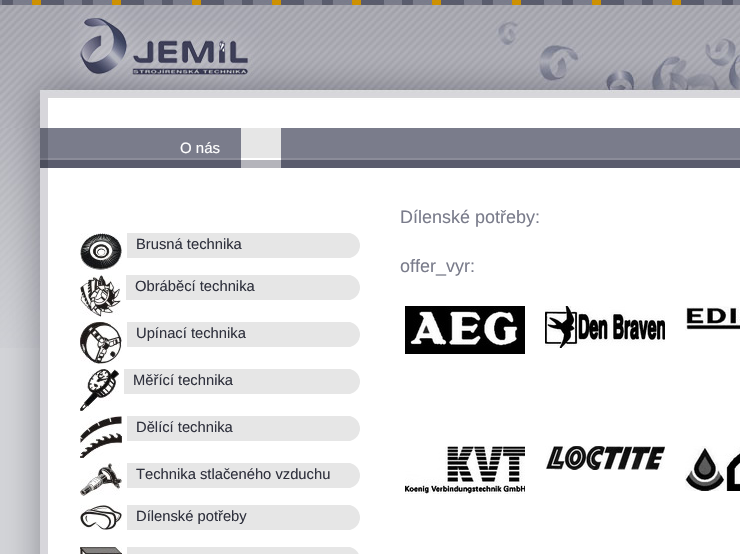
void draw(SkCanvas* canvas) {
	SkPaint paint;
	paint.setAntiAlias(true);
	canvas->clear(0xffffffff);
	canvas->drawImageRect(SkImages::DeferredFromEncodedData(SkData::MakeFromFileName("img1.png")), SkRect::MakeXYWH(0, 0, 740, 5), SkSamplingOptions());
	canvas->drawImageRect(SkImages::DeferredFromEncodedData(SkData::MakeFromFileName("img2.png")), SkRect::MakeXYWH(0, 168, 740, 386), SkSamplingOptions());
	canvas->drawImageRect(SkImages::DeferredFromEncodedData(SkData::MakeFromFileName("img3.png")), SkRect::MakeXYWH(0, 5, 740, 123), SkSamplingOptions());
	canvas->drawImageRect(SkImages::DeferredFromEncodedData(SkData::MakeFromFileName("img4.png")), SkRect::MakeXYWH(70, 5, 190, 85), SkSamplingOptions());
	canvas->drawImageRect(SkImages::DeferredFromEncodedData(SkData::MakeFromFileName("img5.png")), SkRect::MakeXYWH(0, 128, 40, 220), SkSamplingOptions());
	canvas->drawImageRect(SkImages::DeferredFromEncodedData(SkData::MakeFromFileName("img6.png")), SkRect::MakeXYWH(40, 128, 700, 40), SkSamplingOptions());
	SkFont f1(fontMgr->matchFamilyStyle("Liberation Sans", SkFontStyle::Normal()), 15);
	f1.setSubpixel(true);
	paint.setColor(0xffffffff);
	canvas->drawString("O nás", 180, 153, f1, paint);
	paint.setColor(0xffe6e6e6);
	canvas->drawRect(SkRect::MakeXYWH(241, 128, 40, 30), paint);
	canvas->drawImageRect(SkImages::DeferredFromEncodedData(SkData::MakeFromFileName("img7.png")), SkRect::MakeXYWH(241, 158, 40, 10), SkSamplingOptions());
	canvas->drawImageRect(SkImages::DeferredFromEncodedData(SkData::MakeFromFileName("img8.png")), SkRect::MakeXYWH(127, 233, 233, 25), SkSamplingOptions());
	canvas->drawImageRect(SkImages::DeferredFromEncodedData(SkData::MakeFromFileName("img9.png")), SkRect::MakeXYWH(80, 233, 42, 37), SkSamplingOptions());
	SkFont f2(fontMgr->matchFamilyStyle("Liberation Sans", SkFontStyle::Normal()), 14.75);
	f2.setSubpixel(true);
	paint.setColor(0xff30323e);
	canvas->drawString("Brusná technika", 136, 249, f2, paint);
	canvas->drawImageRect(SkImages::DeferredFromEncodedData(SkData::MakeFromFileName("img10.png")), SkRect::MakeXYWH(126, 275, 234, 25), SkSamplingOptions());
	canvas->drawImageRect(SkImages::DeferredFromEncodedData(SkData::MakeFromFileName("img11.png")), SkRect::MakeXYWH(80, 275, 41, 42), SkSamplingOptions());
	canvas->drawString("Obráběcí technika", 135, 291, f2, paint);
	canvas->drawImageRect(SkImages::DeferredFromEncodedData(SkData::MakeFromFileName("img8.png")), SkRect::MakeXYWH(127, 322, 233, 25), SkSamplingOptions());
	canvas->drawImageRect(SkImages::DeferredFromEncodedData(SkData::MakeFromFileName("img12.png")), SkRect::MakeXYWH(80, 322, 42, 42), SkSamplingOptions());
	canvas->drawString("Upínací technika", 136, 338, f2, paint);
	canvas->drawImageRect(SkImages::DeferredFromEncodedData(SkData::MakeFromFileName("img13.png")), SkRect::MakeXYWH(124, 369, 236, 25), SkSamplingOptions());
	canvas->drawImageRect(SkImages::DeferredFromEncodedData(SkData::MakeFromFileName("img14.png")), SkRect::MakeXYWH(80, 369, 39, 42), SkSamplingOptions());
	canvas->drawString("Měřící technika", 133, 385, f2, paint);
	canvas->drawImageRect(SkImages::DeferredFromEncodedData(SkData::MakeFromFileName("img8.png")), SkRect::MakeXYWH(127, 416, 233, 25), SkSamplingOptions());
	canvas->drawImageRect(SkImages::DeferredFromEncodedData(SkData::MakeFromFileName("img15.png")), SkRect::MakeXYWH(80, 416, 42, 42), SkSamplingOptions());
	canvas->drawString("Dělící technika", 136, 432, f2, paint);
	canvas->drawImageRect(SkImages::DeferredFromEncodedData(SkData::MakeFromFileName("img8.png")), SkRect::MakeXYWH(127, 463, 233, 25), SkSamplingOptions());
	canvas->drawImageRect(SkImages::DeferredFromEncodedData(SkData::MakeFromFileName("img16.png")), SkRect::MakeXYWH(80, 463, 42, 33), SkSamplingOptions());
	canvas->drawString("Technika stlačeného vzduchu", 136, 479, f2, paint);
	canvas->drawImageRect(SkImages::DeferredFromEncodedData(SkData::MakeFromFileName("img8.png")), SkRect::MakeXYWH(127, 505, 233, 25), SkSamplingOptions());
	canvas->drawImageRect(SkImages::DeferredFromEncodedData(SkData::MakeFromFileName("img17.png")), SkRect::MakeXYWH(80, 505, 42, 25), SkSamplingOptions());
	canvas->drawString("Dílenské potřeby", 136, 521, f2, paint);
	canvas->drawImageRect(SkImages::DeferredFromEncodedData(SkData::MakeFromFileName("img18.png")), SkRect::MakeXYWH(127, 547, 232, 7), SkSamplingOptions());
	canvas->drawImageRect(SkImages::DeferredFromEncodedData(SkData::MakeFromFileName("img19.png")), SkRect::MakeXYWH(80, 547, 42, 7), SkSamplingOptions());
	SkFont f3(fontMgr->matchFamilyStyle("Liberation Sans", SkFontStyle::Normal()), 18);
	f3.setSubpixel(true);
	paint.setColor(0xff7a7c8b);
	canvas->drawString("Dílenské potřeby:", 400, 223, f3, paint);
	canvas->drawString("offer_vyr:", 400, 272, f3, paint);
	canvas->drawImageRect(SkImages::DeferredFromEncodedData(SkData::MakeFromFileName("img20.png")), SkRect::MakeXYWH(405, 306, 120, 48), SkSamplingOptions());
	canvas->drawImageRect(SkImages::DeferredFromEncodedData(SkData::MakeFromFileName("img21.png")), SkRect::MakeXYWH(545, 306, 120, 42), SkSamplingOptions());
	canvas->drawImageRect(SkImages::DeferredFromEncodedData(SkData::MakeFromFileName("img22.png")), SkRect::MakeXYWH(685, 306, 55, 25), SkSamplingOptions());
	canvas->drawImageRect(SkImages::DeferredFromEncodedData(SkData::MakeFromFileName("img23.png")), SkRect::MakeXYWH(405, 446, 120, 48), SkSamplingOptions());
	canvas->drawImageRect(SkImages::DeferredFromEncodedData(SkData::MakeFromFileName("img24.png")), SkRect::MakeXYWH(545, 446, 120, 24), SkSamplingOptions());
	canvas->drawImageRect(SkImages::DeferredFromEncodedData(SkData::MakeFromFileName("img25.png")), SkRect::MakeXYWH(685, 446, 55, 45), SkSamplingOptions());
}
